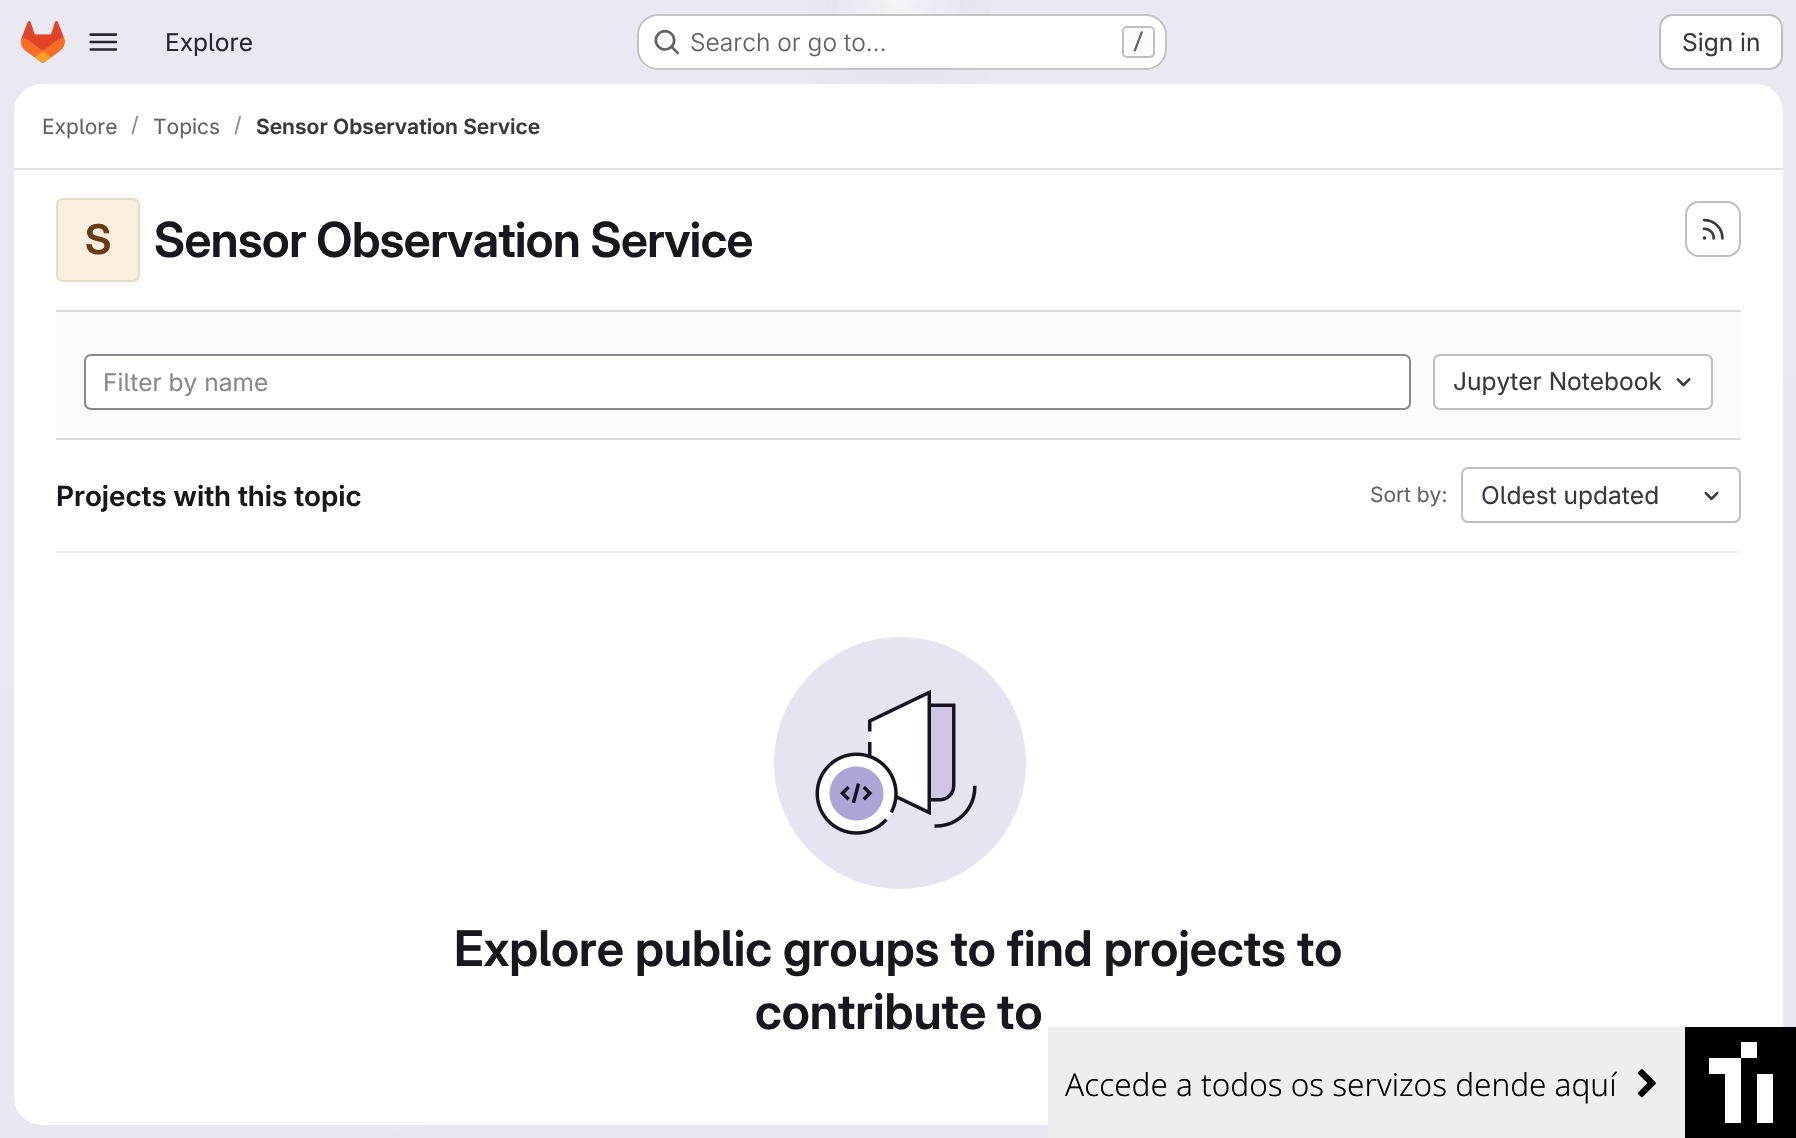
void draw(SkCanvas* canvas) {
	SkPaint paint;
	paint.setAntiAlias(true);
	auto spacedText = [&](const char* s, float x, float y, const SkFont& font, const SkPaint& ink, float letter, float word) {
		std::vector<SkGlyphID> glyphs(font.countText(s, strlen(s), SkTextEncoding::kUTF8));
		std::vector<float> xs(glyphs.size());
		font.textToGlyphs(s, strlen(s), SkTextEncoding::kUTF8, glyphs);
		font.getXPos(glyphs, xs, x);
		float extra = 0;
		for (size_t i = 0; i < glyphs.size(); i++) {
			xs[i] += extra;
			extra += letter + word * (glyphs[i] == font.unicharToGlyph(' '));
		}
		canvas->drawTextBlob(SkTextBlob::MakeFromPosHGlyphs(glyphs, xs, y, font), 0, 0, ink);
	};
	auto svgPath = [&](const char* data, bool evenOdd = false) {
		SkPath result = *SkParsePath::FromSVGString(data);
		if (evenOdd) result.setFillType(SkPathFillType::kEvenOdd);
		return result;
	};
	canvas->clear(0xffffffff);
	{
		const SkColor colors[] = {0xffe8e6f0, 0xffeae9f2};
		const float stops[] = {0, 0.7};
		const SkPoint ends[] = {{1023, 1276}, {774, -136}};
		paint.setShader(SkGradientShader::MakeLinear(ends, colors, stops, 2, SkTileMode::kClamp));
		paint.setAlpha(255);
	}
	canvas->drawRect(SkRect::MakeXYWH(0, 0, 1796, 1138), paint);
	{
		const SkColor colors[] = {0xffe4e2ed, 0x00e4e2ed};
		const float stops[] = {0, 0.14};
		SkMatrix m = SkMatrix::Translate(899, 0).preScale(899, 1139);
		paint.setShader(SkGradientShader::MakeRadial({0, 0}, 1, colors, stops, 2, SkTileMode::kClamp, 0, &m));
		paint.setAlpha(255);
	}
	canvas->drawRect(SkRect::MakeXYWH(809, 0, 181, 84), paint);
	{
		const SkColor colors[] = {0xffe4e2ec, 0x00e4e2ec};
		const float stops[] = {0, 0.1};
		SkMatrix m = SkMatrix::Translate(899, 0).preScale(899, 1139);
		paint.setShader(SkGradientShader::MakeRadial({0, 0}, 1, colors, stops, 2, SkTileMode::kClamp, 0, &m));
		paint.setAlpha(255);
	}
	canvas->drawRect(SkRect::MakeXYWH(863, 4, 73, 43), paint);
	{
		const SkColor colors[] = {0x99ffffff, 0x00ffffff};
		const float stops[] = {0, 0.05};
		paint.setShader(SkGradientShader::MakeRadial({899, 0}, 1451, colors, stops, 2, SkTileMode::kClamp));
		paint.setAlpha(255);
	}
	canvas->drawRect(SkRect::MakeXYWH(838, 0, 122, 14), paint);
	canvas->drawImageRect(SkImages::DeferredFromEncodedData(SkData::MakeFromFileName("img1.png")), SkRect::MakeXYWH(21, 21, 44, 42), SkSamplingOptions());
	canvas->drawImageRect(SkImages::DeferredFromEncodedData(SkData::MakeFromFileName("img2.png")), SkRect::MakeXYWH(89, 33, 29, 18), SkSamplingOptions());
	SkFont f1(fontMgr->matchFamilyStyle("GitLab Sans", SkFontStyle::Normal()), 24.5);
	f1.setSubpixel(true);
	paint.setShader(nullptr);
	paint.setColor(0xff28272d);
	canvas->drawString("Explore", 165, 51, f1, paint);
	paint.setColor(0xffffffff);
	canvas->drawRoundRect(SkRect::MakeXYWH(637, 14, 530, 56), 21, 21, paint);
	paint.setStroke(true);
	paint.setStrokeWidth(2);
	paint.setColor(0x3d050506);
	canvas->drawRoundRect(SkRect::MakeXYWH(638, 15, 528, 54), 20, 20, paint);
	canvas->drawImageRect(SkImages::DeferredFromEncodedData(SkData::MakeFromFileName("img3.png")), SkRect::MakeXYWH(654, 29, 25, 26), SkSamplingOptions());
	SkFont f2(fontMgr->matchFamilyStyle("GitLab Sans", SkFontStyle(300, SkFontStyle::kNormal_Width, SkFontStyle::kUpright_Slant)), 24.5);
	f2.setSubpixel(true);
	paint.setStroke(false);
	paint.setColor(0xff626168);
	canvas->drawString("Search or go to…", 690, 51, f2, paint);
	paint.setColor(0xfffbfafd);
	canvas->drawRoundRect(SkRect::MakeXYWH(1123, 27, 31, 30), 4, 4, paint);
	paint.setStroke(true);
	paint.setColor(0xffbfbfc3);
	canvas->drawRoundRect(SkRect::MakeXYWH(1123, 27, 31, 30), 4, 4, paint);
	SkFont f3(fontMgr->matchFamilyStyle("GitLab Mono", SkFontStyle(500, SkFontStyle::kNormal_Width, SkFontStyle::kUpright_Slant)), 21);
	f3.setSubpixel(true);
	paint.setStroke(false);
	paint.setColor(0xff626168);
	canvas->drawString("/", 1132, 49, f3, paint);
	paint.setColor(0xffffffff);
	canvas->drawRoundRect(SkRect::MakeXYWH(1660, 15, 122, 54), 13, 13, paint);
	paint.setStroke(true);
	paint.setColor(0xffbfbfc3);
	canvas->drawRoundRect(SkRect::MakeXYWH(1660, 15, 122, 54), 13, 13, paint);
	paint.setStroke(false);
	paint.setColor(0xff3a383f);
	canvas->drawString("Sign in", 1682, 51, f1, paint);
	paint.setColor(0xffffffff);
	canvas->drawRoundRect(SkRect::MakeXYWH(14, 84, 1769, 1041), 28, 28, paint);
	canvas->drawPath(svgPath("M42 84H1755C1770.5 84 1783 96.5 1783 112V170H14V112C14 96.5 26.5 84 42 84Z"), paint);
	paint.setColor(0xffe1dfec);
	canvas->drawRect(SkRect::MakeXYWH(14, 168, 1769, 2), paint);
	SkFont f4(fontMgr->matchFamilyStyle("GitLab Sans", SkFontStyle::Normal()), 21);
	f4.setSubpixel(true);
	paint.setColor(0xff626168);
	canvas->drawString("Explore", 42, 134, f4, paint);
	paint.setColor(0xff89888d);
	canvas->drawString("/", 131, 132, f4, paint);
	paint.setColor(0xff626168);
	canvas->drawString("Topics", 153, 134, f4, paint);
	paint.setColor(0xff89888d);
	canvas->drawString("/", 234, 132, f4, paint);
	SkFont f5(fontMgr->matchFamilyStyle("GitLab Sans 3", SkFontStyle(600, SkFontStyle::kNormal_Width, SkFontStyle::kUpright_Slant)), 21);
	f5.setSubpixel(true);
	paint.setColor(0xff3a383f);
	canvas->drawString("Sensor Observation Service", 256, 134, f5, paint);
	paint.setColor(0xfffaefde);
	canvas->drawRoundRect(SkRect::MakeXYWH(56, 198, 84, 84), 7, 7, paint);
	paint.setStroke(true);
	paint.setColor(0x14050506);
	canvas->drawRoundRect(SkRect::MakeXYWH(57, 199, 82, 82), 6, 6, paint);
	SkFont f6(fontMgr->matchFamilyStyle("GitLab Sans", SkFontStyle(600, SkFontStyle::kNormal_Width, SkFontStyle::kUpright_Slant)), 41);
	f6.setSubpixel(true);
	paint.setStroke(false);
	paint.setColor(0xff693c14);
	spacedText("S", 85, 254, f6, paint, -0.5, 0);
	SkFont f7(fontMgr->matchFamilyStyle("GitLab Sans", SkFontStyle(600, SkFontStyle::kNormal_Width, SkFontStyle::kUpright_Slant)), 48.25);
	f7.setSubpixel(true);
	paint.setColor(0xff18171d);
	spacedText("Sensor Observation Service", 154, 257, f7, paint, -0.5, 0);
	paint.setStroke(true);
	paint.setColor(0xffbfbfc3);
	canvas->drawRoundRect(SkRect::MakeXYWH(1686, 202, 54, 54), 13, 13, paint);
	canvas->drawImageRect(SkImages::DeferredFromEncodedData(SkData::MakeFromFileName("img4.png")), SkRect::MakeXYWH(1702, 218, 22, 22), SkSamplingOptions());
	paint.setStroke(false);
	paint.setColor(0xfffbfafd);
	canvas->drawRect(SkRect::MakeXYWH(56, 312, 1685, 126), paint);
	paint.setColor(0xffdcdcde);
	canvas->drawRect(SkRect::MakeXYWH(56, 310, 1685, 2), paint);
	canvas->drawRect(SkRect::MakeXYWH(56, 438, 1685, 2), paint);
	paint.setColor(0xffffffff);
	canvas->drawRoundRect(SkRect::MakeXYWH(85, 355, 1325, 54), 6, 6, paint);
	paint.setStroke(true);
	paint.setColor(0xff89888d);
	canvas->drawRoundRect(SkRect::MakeXYWH(85, 355, 1325, 54), 6, 6, paint);
	paint.setStroke(false);
	canvas->drawString("Filter by name", 103, 391, f1, paint);
	paint.setColor(0xffffffff);
	canvas->drawRoundRect(SkRect::MakeXYWH(1434, 355, 278, 54), 6, 6, paint);
	paint.setStroke(true);
	paint.setColor(0xffbfbfc3);
	canvas->drawRoundRect(SkRect::MakeXYWH(1434, 355, 278, 54), 6, 6, paint);
	paint.setStroke(false);
	paint.setColor(0xff3a383f);
	canvas->drawString("Jupyter Notebook", 1453, 390, f1, paint);
	canvas->drawImageRect(SkImages::DeferredFromEncodedData(SkData::MakeFromFileName("img5.png")), SkRect::MakeXYWH(1676, 378, 15, 9), SkSamplingOptions());
	paint.setColor(0xffececef);
	canvas->drawRect(SkRect::MakeXYWH(56, 551, 1685, 2), paint);
	SkFont f8(fontMgr->matchFamilyStyle("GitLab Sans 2", SkFontStyle(600, SkFontStyle::kNormal_Width, SkFontStyle::kUpright_Slant)), 28);
	f8.setSubpixel(true);
	paint.setColor(0xff18171d);
	canvas->drawString("Projects with this topic", 56, 506, f8, paint);
	paint.setColor(0xff626168);
	canvas->drawString("Sort by:", 1370, 502, f4, paint);
	paint.setStroke(true);
	paint.setColor(0xffbfbfc3);
	canvas->drawRoundRect(SkRect::MakeXYWH(1462, 468, 278, 54), 6, 6, paint);
	paint.setStroke(false);
	paint.setColor(0xff3a383f);
	canvas->drawString("Oldest updated", 1481, 504, f1, paint);
	canvas->drawImageRect(SkImages::DeferredFromEncodedData(SkData::MakeFromFileName("img6.png")), SkRect::MakeXYWH(1704, 491, 15, 10), SkSamplingOptions());
	canvas->drawImageRect(SkImages::DeferredFromEncodedData(SkData::MakeFromFileName("img7.png")), SkRect::MakeXYWH(774, 637, 252, 252), SkSamplingOptions());
	SkFont f9(fontMgr->matchFamilyStyle("GitLab Sans", SkFontStyle(600, SkFontStyle::kNormal_Width, SkFontStyle::kUpright_Slant)), 49);
	f9.setSubpixel(true);
	paint.setColor(0xff18171d);
	canvas->drawString("Explore public groups to find projects to", 454, 966, f9, paint);
	canvas->drawString("contribute to", 755, 1029, f9, paint);
	paint.setColor(0xffeeeeee);
	canvas->drawRect(SkRect::MakeXYWH(1048, 1027, 637, 111), paint);
	SkFont f10(fontMgr->matchFamilyStyle("Noto Sans", SkFontStyle(300, SkFontStyle::kNormal_Width, SkFontStyle::kUpright_Slant)), 31.5);
	f10.setSubpixel(true);
	paint.setColor(0xff000000);
	canvas->drawString("Accede a todos os servizos dende aquí", 1065, 1096, f10, paint);
	canvas->drawImageRect(SkImages::DeferredFromEncodedData(SkData::MakeFromFileName("img8.png")), SkRect::MakeXYWH(1637, 1069, 19, 29), SkSamplingOptions());
	paint.setColor(0xffffffff);
	canvas->drawRect(SkRect::MakeXYWH(1766, 1118, 7, 5), paint);
	paint.setColor(0xff000000);
	canvas->drawPath(svgPath("M1685 1083V1027H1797V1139H1685ZM1741 1091V1058H1757V1042H1741V1058H1709V1074H1725V1123H1741ZM1773 1099V1074H1757V1123H1773Z"), paint);
}
